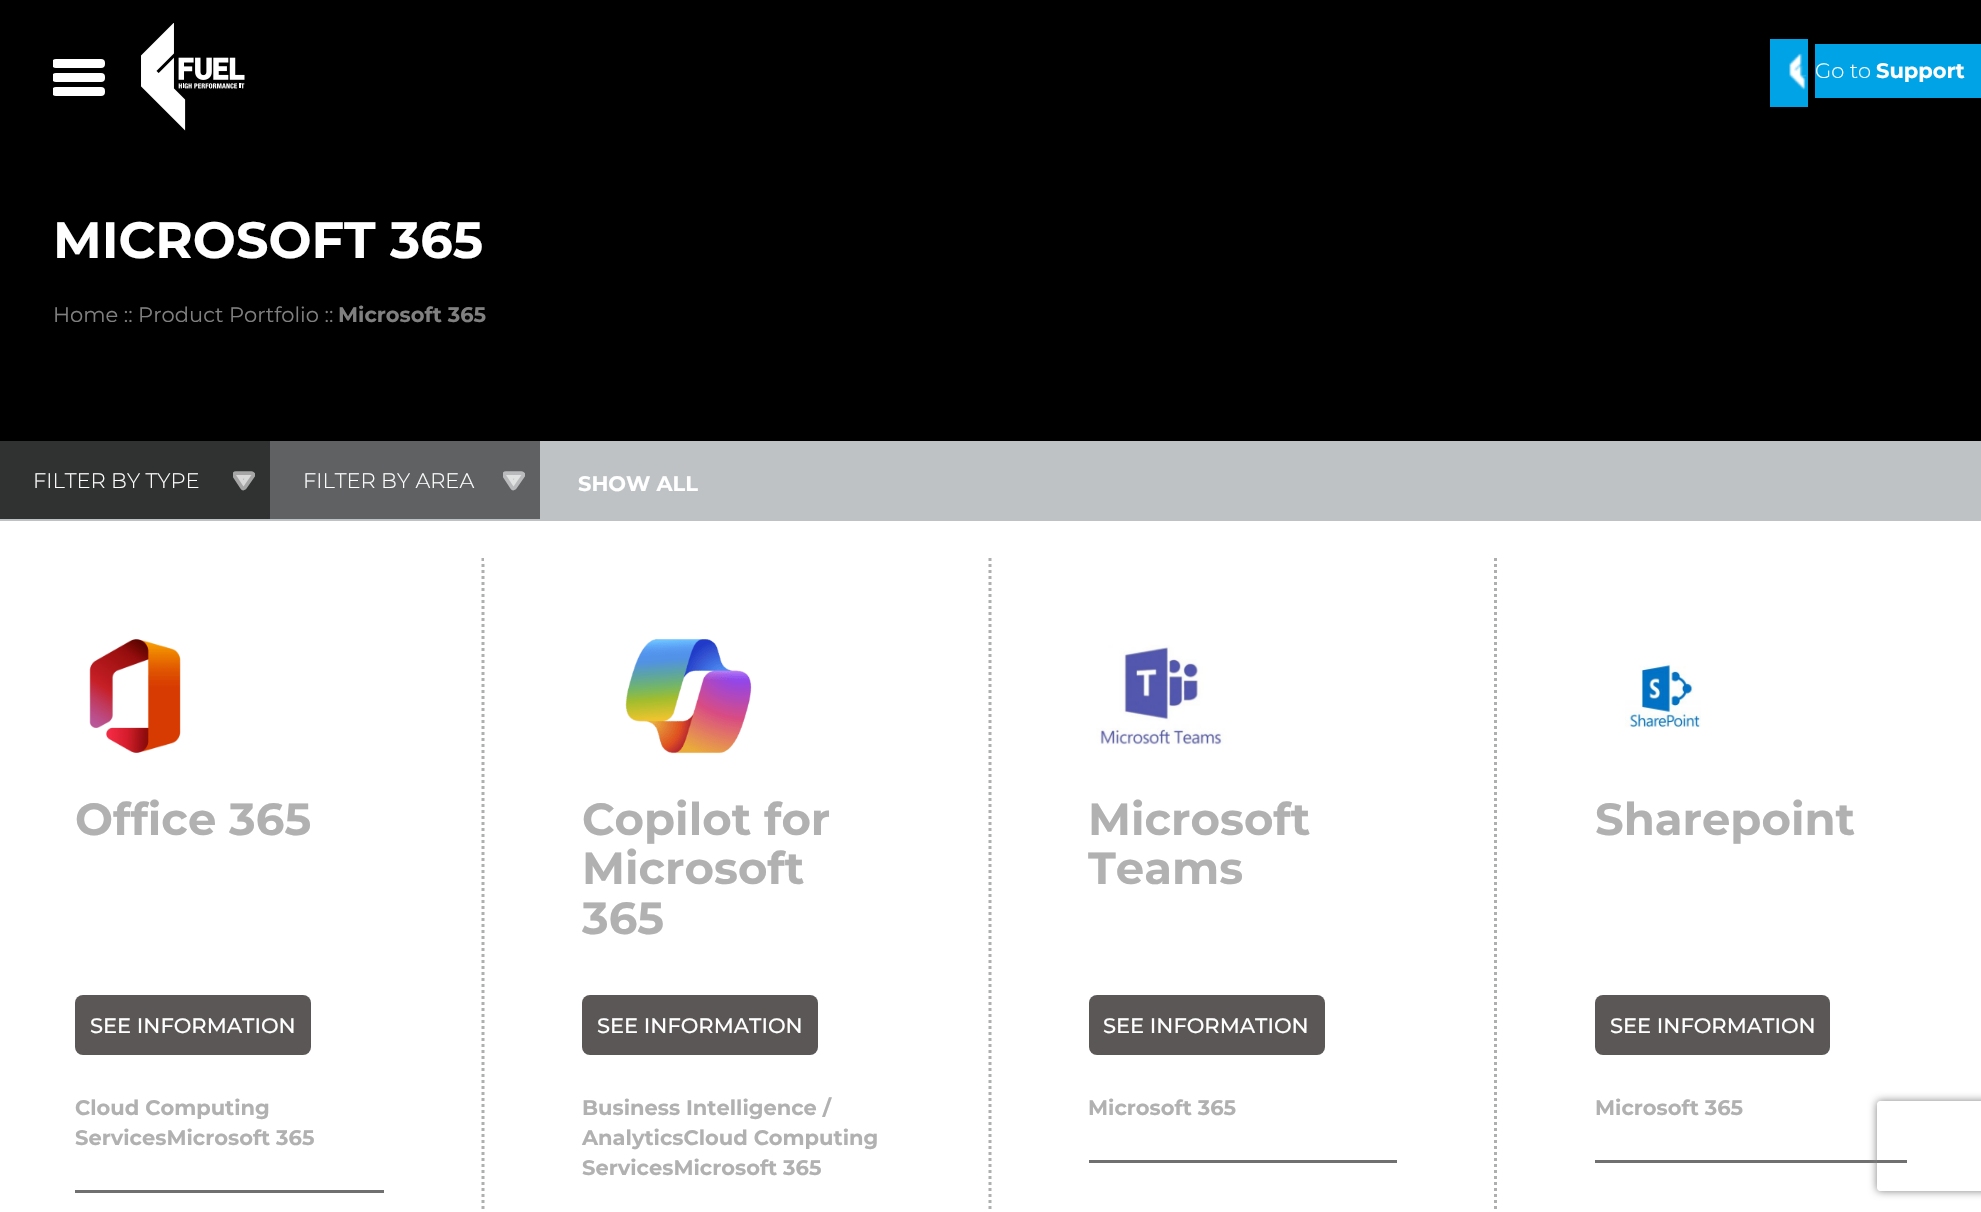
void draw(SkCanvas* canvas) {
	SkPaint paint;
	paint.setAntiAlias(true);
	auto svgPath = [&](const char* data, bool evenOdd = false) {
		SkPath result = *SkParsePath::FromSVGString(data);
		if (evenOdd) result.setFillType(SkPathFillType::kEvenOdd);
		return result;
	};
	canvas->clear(0xffffffff);
	paint.setColor(0xff000000);
	canvas->drawRect(SkRect::MakeXYWH(0, 0, 1981, 441), paint);
	canvas->save();
	canvas->clipRect(SkRect::MakeXYWH(53, 59, 52, 37));
	paint.setColor(0xffffffff);
	canvas->drawRoundRect(SkRect::MakeXYWH(52, 59, 53, 9), 4, 4, paint);
	canvas->restore();
	canvas->drawImageRect(SkImages::DeferredFromEncodedData(SkData::MakeFromFileName("img1.png")), SkRect::MakeXYWH(141, 23, 104, 108), SkSamplingOptions());
	canvas->save();
	canvas->clipRect(SkRect::MakeXYWH(53, 59, 52, 37));
	canvas->drawRoundRect(SkRect::MakeXYWH(52, 73, 53, 9), 4, 4, paint);
	canvas->drawRoundRect(SkRect::MakeXYWH(52, 87, 53, 9), 4, 4, paint);
	canvas->restore();
	paint.setColor(0xff00a3e6);
	canvas->drawRect(SkRect::MakeXYWH(1770, 39, 38, 68), paint);
	canvas->drawImageRect(SkImages::DeferredFromEncodedData(SkData::MakeFromFileName("img2.png")), SkRect::MakeXYWH(1789, 53, 18, 37), SkSamplingOptions());
	canvas->drawRect(SkRect::MakeXYWH(1815, 44, 166, 54), paint);
	SkFont f1(fontMgr->matchFamilyStyle("Montserrat", SkFontStyle(300, SkFontStyle::kNormal_Width, SkFontStyle::kUpright_Slant)), 21);
	f1.setSubpixel(true);
	paint.setColor(0xffffffff);
	canvas->drawString("Go to", 1815, 78, f1, paint);
	SkFont f2(fontMgr->matchFamilyStyle("Montserrat", SkFontStyle::Bold()), 21);
	f2.setSubpixel(true);
	canvas->drawString("Support", 1876, 78, f2, paint);
	SkFont f3(fontMgr->matchFamilyStyle("Montserrat", SkFontStyle::Bold()), 51);
	f3.setSubpixel(true);
	canvas->drawString("MICROSOFT 365", 53, 258, f3, paint);
	SkFont f4(fontMgr->matchFamilyStyle("Montserrat", SkFontStyle::Normal()), 21);
	f4.setSubpixel(true);
	paint.setColor(0xff808080);
	canvas->drawString("Home :: Product Portfolio ::", 53, 322, f4, paint);
	canvas->drawString("Microsoft 365", 338, 322, f2, paint);
	paint.setColor(0xffbec2c5);
	canvas->drawRect(SkRect::MakeXYWH(0, 441, 1981, 80), paint);
	paint.setColor(0xff303131);
	canvas->drawRect(SkRect::MakeXYWH(0, 441, 270, 78), paint);
	paint.setColor(0xffa6a7a7);
	canvas->drawPath(svgPath("M236 475L243.5 486.5L251.5 475Z"), paint);
	canvas->save();
	canvas->clipRect(SkRect::MakeXYWH(233, 470, 22, 22));
	paint.setStroke(true);
	paint.setStrokeWidth(7.4);
	paint.setStrokeCap(SkPaint::kRound_Cap);
	paint.setStrokeJoin(SkPaint::kRound_Join);
	paint.setColor(0x91ffffff);
	canvas->drawPath(svgPath("M236 475L243.5 486.5L251.5 475Z"), paint);
	canvas->restore();
	paint.setStroke(false);
	paint.setColor(0xffffffff);
	canvas->drawString("FILTER BY TYPE", 33, 488, f1, paint);
	paint.setColor(0xff5f6163);
	canvas->drawRect(SkRect::MakeXYWH(270, 441, 270, 78), paint);
	paint.setColor(0xffbabbbc);
	canvas->drawPath(svgPath("M506 475L513.5 486.5L521.5 475Z"), paint);
	canvas->save();
	canvas->clipRect(SkRect::MakeXYWH(503, 470, 22, 22));
	paint.setStroke(true);
	paint.setColor(0x91ffffff);
	canvas->drawPath(svgPath("M506 475L513.5 486.5L521.5 475Z"), paint);
	canvas->restore();
	paint.setStroke(false);
	paint.setColor(0xffffffff);
	canvas->drawString("FILTER BY AREA", 303, 488, f1, paint);
	canvas->drawString("SHOW ALL", 578, 491, f2, paint);
	paint.setStroke(true);
	paint.setStrokeWidth(3);
	paint.setStrokeCap(SkPaint::kButt_Cap);
	paint.setStrokeJoin(SkPaint::kMiter_Join);
	paint.setColor(0xffaeafaf);
	paint.setPathEffect(SkDashPathEffect::Make({{3, 3}}, 0));
	canvas->drawPath(svgPath("M483 558V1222.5"), paint);
	paint.setPathEffect(nullptr);
	canvas->drawImageRect(SkImages::DeferredFromEncodedData(SkData::MakeFromFileName("img3.png")), SkRect::MakeXYWH(89, 639, 92, 114), SkSamplingOptions());
	SkFont f5(fontMgr->matchFamilyStyle("Montserrat", SkFontStyle::Bold()), 45);
	f5.setSubpixel(true);
	paint.setStroke(false);
	paint.setColor(0xffb1b1b1);
	canvas->drawString("Office 365", 75, 835, f5, paint);
	paint.setColor(0xff5c5757);
	canvas->drawRoundRect(SkRect::MakeXYWH(75, 995, 236, 60), 8, 8, paint);
	SkFont f6(fontMgr->matchFamilyStyle("Montserrat", SkFontStyle(500, SkFontStyle::kNormal_Width, SkFontStyle::kUpright_Slant)), 21);
	f6.setSubpixel(true);
	paint.setColor(0xffffffff);
	canvas->drawString("SEE INFORMATION", 90, 1033, f6, paint);
	paint.setColor(0xffb1b1b1);
	canvas->drawString("Cloud Computing", 75, 1115, f2, paint);
	canvas->drawString("ServicesMicrosoft 365", 75, 1145, f2, paint);
	paint.setColor(0xff707070);
	canvas->drawRect(SkRect::MakeXYWH(75, 1190, 309, 3), paint);
	paint.setColor(0xffffffff);
	canvas->drawPath(svgPath("M484 558H992L988 561H484Z"), paint);
	paint.setStroke(true);
	paint.setColor(0xffaeafaf);
	paint.setPathEffect(SkDashPathEffect::Make({{3, 3}}, 0));
	canvas->drawPath(svgPath("M990 558V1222.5"), paint);
	paint.setPathEffect(nullptr);
	canvas->drawImageRect(SkImages::DeferredFromEncodedData(SkData::MakeFromFileName("img4.png")), SkRect::MakeXYWH(625, 639, 127, 115), SkSamplingOptions());
	paint.setStroke(false);
	paint.setColor(0xffb1b1b1);
	canvas->drawString("Copilot for", 582, 835, f5, paint);
	canvas->drawString("Microsoft", 582, 884, f5, paint);
	canvas->drawString("365", 582, 934, f5, paint);
	paint.setColor(0xff5c5757);
	canvas->drawRoundRect(SkRect::MakeXYWH(582, 995, 236, 60), 8, 8, paint);
	paint.setColor(0xffffffff);
	canvas->drawString("SEE INFORMATION", 597, 1033, f6, paint);
	paint.setColor(0xffb1b1b1);
	canvas->drawString("Business Intelligence /", 582, 1115, f2, paint);
	canvas->drawString("AnalyticsCloud Computing", 582, 1145, f2, paint);
	canvas->drawString("ServicesMicrosoft 365", 582, 1175, f2, paint);
	paint.setStroke(true);
	paint.setColor(0xffaeafaf);
	paint.setPathEffect(SkDashPathEffect::Make({{3, 3}}, 0));
	canvas->drawPath(svgPath("M1495.5 558V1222.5"), paint);
	paint.setPathEffect(nullptr);
	canvas->drawImageRect(SkImages::DeferredFromEncodedData(SkData::MakeFromFileName("img5.png")), SkRect::MakeXYWH(1096, 645, 131, 100), SkSamplingOptions());
	paint.setStroke(false);
	paint.setColor(0xffb1b1b1);
	canvas->drawString("Microsoft", 1088, 835, f5, paint);
	canvas->drawString("Teams", 1088, 884, f5, paint);
	paint.setColor(0xff5c5757);
	canvas->drawRoundRect(SkRect::MakeXYWH(1089, 995, 236, 60), 8, 8, paint);
	paint.setColor(0xffffffff);
	canvas->drawString("SEE INFORMATION", 1103, 1033, f6, paint);
	paint.setColor(0xffb1b1b1);
	canvas->drawString("Microsoft 365", 1088, 1115, f2, paint);
	paint.setColor(0xff707070);
	canvas->drawRect(SkRect::MakeXYWH(1089, 1160, 308, 3), paint);
	canvas->drawImageRect(SkImages::DeferredFromEncodedData(SkData::MakeFromFileName("img6.png")), SkRect::MakeXYWH(1625, 662, 76, 66), SkSamplingOptions());
	paint.setColor(0xffb1b1b1);
	canvas->drawString("Sharepoint", 1595, 835, f5, paint);
	paint.setColor(0xff5c5757);
	canvas->drawRoundRect(SkRect::MakeXYWH(1595, 995, 235, 60), 8, 8, paint);
	paint.setColor(0xffffffff);
	canvas->drawString("SEE INFORMATION", 1610, 1033, f6, paint);
	paint.setColor(0xffb1b1b1);
	canvas->drawString("Microsoft 365", 1595, 1115, f2, paint);
	paint.setColor(0xff707070);
	canvas->drawRect(SkRect::MakeXYWH(1595, 1160, 312, 3), paint);
	canvas->save();
	canvas->clipPath(svgPath("M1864 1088H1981V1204H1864ZM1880 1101H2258C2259.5 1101 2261 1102.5 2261 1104V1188C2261 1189.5 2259.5 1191 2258 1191H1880C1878.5 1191 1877 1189.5 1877 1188V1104C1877 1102.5 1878.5 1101 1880 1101Z", true), true);
	paint.setColor(0xff808080);
	paint.setMaskFilter(SkMaskFilter::MakeBlur(kNormal_SkBlurStyle, 4));
	canvas->drawRoundRect(SkRect::MakeXYWH(1877, 1101, 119, 90), 3, 3, paint);
	paint.setMaskFilter(nullptr);
	canvas->restore();
}
